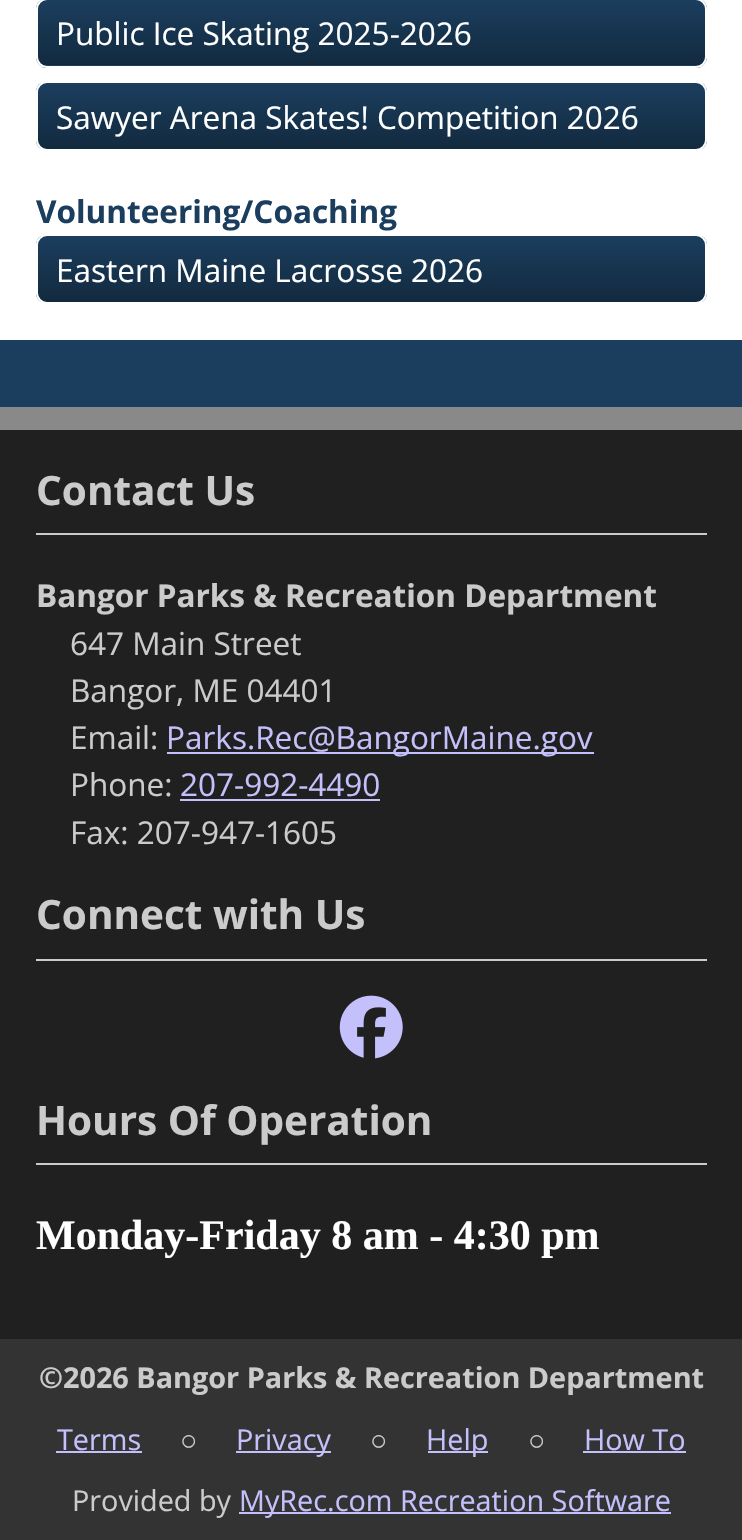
void draw(SkCanvas* canvas) {
	SkPaint paint;
	paint.setAntiAlias(true);
	auto svgPath = [&](const char* data, bool evenOdd = false) {
		SkPath result = *SkParsePath::FromSVGString(data);
		if (evenOdd) result.setFillType(SkPathFillType::kEvenOdd);
		return result;
	};
	canvas->clear(0xffffffff);
	canvas->save();
	canvas->clipPath(svgPath("M47-2H696C702-2 707 3 707 9V57C707 63 702 68 696 68H47C41 68 36 63 36 57V9C36 3 41-2 47-2Z"), true);
	{
		const SkColor colors[] = {0xff1b3e5e, 0xff122a3f};
		const float stops[] = {0, 1};
		const SkPoint ends[] = {{371, 0}, {371, 65}};
		paint.setShader(SkGradientShader::MakeLinear(ends, colors, stops, 2, SkTileMode::kClamp));
		paint.setAlpha(255);
	}
	canvas->drawRect(SkRect::MakeXYWH(36, 0, 671, 65), paint);
	{
		const SkColor colors[] = {0xff1b3e5e, 0xff122a3f};
		const float stops[] = {0, 1};
		const SkPoint ends[] = {{371, 65}, {371, 131}};
		paint.setShader(SkGradientShader::MakeLinear(ends, colors, stops, 2, SkTileMode::kClamp));
		paint.setAlpha(255);
	}
	canvas->drawRect(SkRect::MakeXYWH(36, 65, 671, 3), paint);
	canvas->restore();
	paint.setStroke(true);
	paint.setStrokeWidth(2);
	paint.setShader(nullptr);
	paint.setColor(0xffffffff);
	canvas->drawRoundRect(SkRect::MakeXYWH(37, -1, 669, 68), 10, 10, paint);
	SkFont f1(fontMgr->matchFamilyStyle("Open Sans", SkFontStyle::Normal()), 31.5);
	f1.setSubpixel(true);
	paint.setStroke(false);
	canvas->drawString("Public Ice Skating 2025-2026", 56, 45, f1, paint);
	canvas->save();
	canvas->clipPath(svgPath("M47 81H696C702 81 707 86 707 92V140C707 146 702 151 696 151H47C41 151 36 146 36 140V92C36 86 41 81 47 81Z"), true);
	{
		const SkColor colors[] = {0xff1b3e5e, 0xff122a3f};
		const float stops[] = {0, 1};
		const SkPoint ends[] = {{371, 83}, {371, 149}};
		paint.setShader(SkGradientShader::MakeLinear(ends, colors, stops, 2, SkTileMode::kClamp));
		paint.setAlpha(255);
	}
	canvas->drawRect(SkRect::MakeXYWH(36, 83, 671, 66), paint);
	canvas->restore();
	paint.setStroke(true);
	paint.setShader(nullptr);
	paint.setColor(0xffffffff);
	canvas->drawRoundRect(SkRect::MakeXYWH(37, 82, 669, 68), 10, 10, paint);
	paint.setStroke(false);
	canvas->drawString("Sawyer Arena Skates! Competition 2026", 56, 129, f1, paint);
	SkFont f2(fontMgr->matchFamilyStyle("Open Sans", SkFontStyle::Bold()), 31.5);
	f2.setSubpixel(true);
	paint.setColor(0xff1b3e5e);
	canvas->drawString("Volunteering/Coaching", 36, 223, f2, paint);
	canvas->save();
	canvas->clipPath(svgPath("M47 234H696C702 234 707 239 707 245V293C707 299 702 304 696 304H47C41 304 36 299 36 293V245C36 239 41 234 47 234Z"), true);
	{
		const SkColor colors[] = {0xff1b3e5e, 0xff122a3f};
		const float stops[] = {0, 1};
		const SkPoint ends[] = {{371, 236}, {371, 302}};
		paint.setShader(SkGradientShader::MakeLinear(ends, colors, stops, 2, SkTileMode::kClamp));
		paint.setAlpha(255);
	}
	canvas->drawRect(SkRect::MakeXYWH(36, 236, 671, 66), paint);
	canvas->restore();
	paint.setStroke(true);
	paint.setShader(nullptr);
	paint.setColor(0xffffffff);
	canvas->drawRoundRect(SkRect::MakeXYWH(37, 235, 669, 68), 10, 10, paint);
	paint.setStroke(false);
	canvas->drawString("Eastern Maine Lacrosse 2026", 56, 282, f1, paint);
	paint.setColor(0xff1b3e5e);
	canvas->drawRect(SkRect::MakeXYWH(0, 340, 742, 67), paint);
	paint.setColor(0xff202020);
	canvas->drawRect(SkRect::MakeXYWH(0, 430, 742, 909), paint);
	paint.setColor(0xff898989);
	canvas->drawRect(SkRect::MakeXYWH(0, 407, 742, 23), paint);
	paint.setColor(0xffcbcbcb);
	canvas->drawRect(SkRect::MakeXYWH(36, 533, 671, 2), paint);
	SkFont f3(fontMgr->matchFamilyStyle("Open Sans", SkFontStyle::Bold()), 40.5);
	f3.setSubpixel(true);
	canvas->drawString("Contact Us", 36, 505, f3, paint);
	canvas->drawString("Bangor Parks & Recreation Department", 36, 607, f2, paint);
	canvas->drawString("647 Main Street", 70, 655, f1, paint);
	canvas->drawString("Bangor, ME 04401", 70, 702, f1, paint);
	canvas->drawString("Email:", 70, 749, f1, paint);
	paint.setColor(0xffc4c0fb);
	canvas->drawRect(SkRect::MakeXYWH(167, 752, 427, 2), paint);
	canvas->drawString("Parks.Rec@BangorMaine.gov", 166, 749, f1, paint);
	paint.setColor(0xffcbcbcb);
	canvas->drawString("Phone:", 70, 796, f1, paint);
	paint.setColor(0xffc4c0fb);
	canvas->drawString("207-992-4490", 180, 796, f1, paint);
	canvas->drawRect(SkRect::MakeXYWH(180, 799, 200, 2), paint);
	paint.setColor(0xffcbcbcb);
	canvas->drawString("Fax: 207-947-1605", 70, 844, f1, paint);
	canvas->drawRect(SkRect::MakeXYWH(36, 959, 671, 2), paint);
	canvas->drawString("Connect with Us", 36, 929, f3, paint);
	canvas->drawImageRect(SkImages::DeferredFromEncodedData(SkData::MakeFromFileName("img1.png")), SkRect::MakeXYWH(339, 995, 64, 64), SkSamplingOptions());
	canvas->drawRect(SkRect::MakeXYWH(36, 1163, 671, 2), paint);
	canvas->drawString("Hours Of Operation", 36, 1135, f3, paint);
	SkFont f4(fontMgr->matchFamilyStyle("Liberation Serif", SkFontStyle::Bold()), 42);
	f4.setSubpixel(true);
	paint.setColor(0xffffffff);
	canvas->drawString("Monday-Friday 8 am - 4:30 pm", 36, 1249, f4, paint);
	paint.setColor(0xff333333);
	canvas->drawRect(SkRect::MakeXYWH(0, 1339, 742, 201), paint);
	SkFont f5(fontMgr->matchFamilyStyle("Open Sans", SkFontStyle::Bold()), 28.8);
	f5.setSubpixel(true);
	paint.setColor(0xffcbcbcb);
	canvas->drawString("©2026 Bangor Parks & Recreation Department", 39, 1388, f5, paint);
	SkFont f6(fontMgr->matchFamilyStyle("Open Sans", SkFontStyle::Normal()), 28.8);
	f6.setSubpixel(true);
	paint.setColor(0xffc4c0fb);
	canvas->drawString("Terms", 57, 1450, f6, paint);
	canvas->drawRect(SkRect::MakeXYWH(56, 1451, 86, 2), paint);
	SkFont f7(fontMgr->matchFamilyStyle("Liberation Serif", SkFontStyle::Normal()), 28.8);
	f7.setSubpixel(true);
	paint.setColor(0xffcbcbcb);
	canvas->drawString("○", 180, 1450, f7, paint);
	paint.setColor(0xffc4c0fb);
	canvas->drawRect(SkRect::MakeXYWH(236, 1451, 95, 2), paint);
	canvas->drawString("Privacy", 236, 1450, f6, paint);
	paint.setColor(0xffcbcbcb);
	canvas->drawString("○", 370, 1450, f7, paint);
	paint.setColor(0xffc4c0fb);
	canvas->drawRect(SkRect::MakeXYWH(428, 1451, 60, 2), paint);
	canvas->drawString("Help", 426, 1450, f6, paint);
	paint.setColor(0xffcbcbcb);
	canvas->drawString("○", 528, 1450, f7, paint);
	paint.setColor(0xffc4c0fb);
	canvas->drawString("How To", 584, 1450, f6, paint);
	canvas->drawRect(SkRect::MakeXYWH(583, 1451, 103, 2), paint);
	paint.setColor(0xffcbcbcb);
	canvas->drawString("Provided by", 72, 1511, f6, paint);
	paint.setColor(0xffc4c0fb);
	canvas->drawRect(SkRect::MakeXYWH(239, 1512, 432, 2), paint);
	canvas->drawString("MyRec.com Recreation Software", 239, 1511, f6, paint);
}
